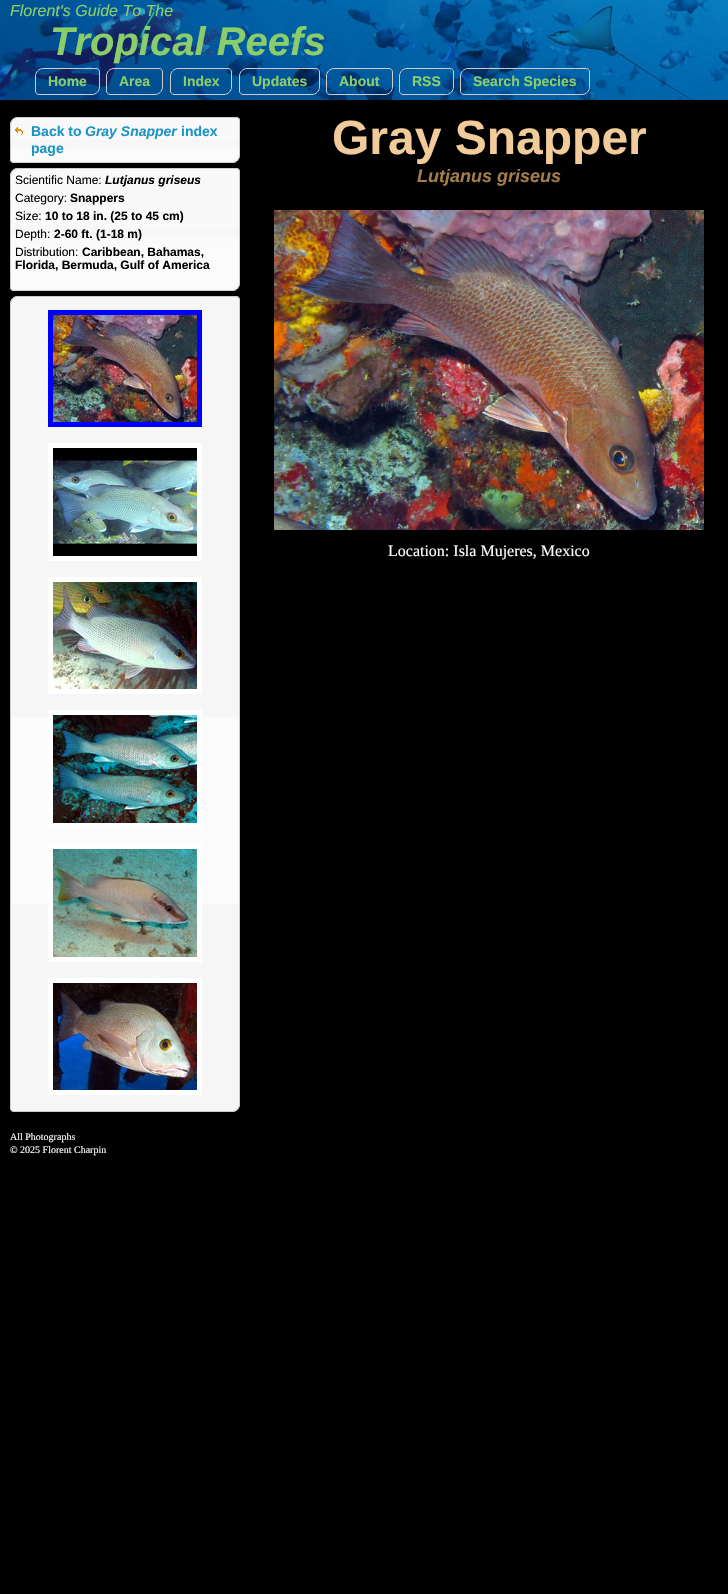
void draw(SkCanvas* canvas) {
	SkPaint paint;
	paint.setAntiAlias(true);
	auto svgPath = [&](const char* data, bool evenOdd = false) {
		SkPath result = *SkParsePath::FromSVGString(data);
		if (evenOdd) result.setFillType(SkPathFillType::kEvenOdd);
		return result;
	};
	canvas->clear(0xff000000);
	canvas->drawImageRect(SkImages::DeferredFromEncodedData(SkData::MakeFromFileName("img1.png")), SkRect::MakeXYWH(0, 0, 728, 100), SkSamplingOptions());
	SkFont f1(fontMgr->matchFamilyStyle("Liberation Sans", SkFontStyle::Italic()), 16);
	f1.setSubpixel(true);
	paint.setColor(0xff8bcd6b);
	canvas->drawString("Florent's Guide To The", 10, 16, f1, paint);
	SkFont f2(fontMgr->matchFamilyStyle("Liberation Sans", SkFontStyle::BoldItalic()), 40);
	f2.setSubpixel(true);
	canvas->drawString("Tropical Reefs", 50, 55, f2, paint);
	paint.setStroke(true);
	paint.setStrokeWidth(1);
	paint.setColor(0xffcccccc);
	canvas->drawPath(svgPath("M43 68.5H96C98 68.5 99.5 70 99.5 72V87C99.5 91 96 94.5 92 94.5H39C37 94.5 35.5 93 35.5 91V76C35.5 72 39 68.5 43 68.5Z"), paint);
	SkFont f3(fontMgr->matchFamilyStyle("Liberation Sans", SkFontStyle::Bold()), 14);
	f3.setSubpixel(true);
	paint.setStroke(false);
	paint.setColor(0xff8bcd6b);
	canvas->drawString("Home", 48, 86, f3, paint);
	paint.setStroke(true);
	paint.setColor(0xffcccccc);
	canvas->drawPath(svgPath("M114 68.5H159C161 68.5 162.5 70 162.5 72V87C162.5 91 159 94.5 155 94.5H110C108 94.5 106.5 93 106.5 91V76C106.5 72 110 68.5 114 68.5Z"), paint);
	paint.setStroke(false);
	paint.setColor(0xff8bcd6b);
	canvas->drawString("Area", 119, 86, f3, paint);
	paint.setStroke(true);
	paint.setColor(0xffcccccc);
	canvas->drawPath(svgPath("M178 68.5H228C230 68.5 231.5 70 231.5 72V87C231.5 91 228 94.5 224 94.5H174C172 94.5 170.5 93 170.5 91V76C170.5 72 174 68.5 178 68.5Z"), paint);
	paint.setStroke(false);
	paint.setColor(0xff8bcd6b);
	canvas->drawString("Index", 183, 86, f3, paint);
	paint.setStroke(true);
	paint.setColor(0xffcccccc);
	canvas->drawPath(svgPath("M247 68.5H316C318 68.5 319.5 70 319.5 72V87C319.5 91 316 94.5 312 94.5H243C241 94.5 239.5 93 239.5 91V76C239.5 72 243 68.5 247 68.5Z"), paint);
	paint.setStroke(false);
	paint.setColor(0xff8bcd6b);
	canvas->drawString("Updates", 252, 86, f3, paint);
	paint.setStroke(true);
	paint.setColor(0xffcccccc);
	canvas->drawPath(svgPath("M334 68.5H389C391 68.5 392.5 70 392.5 72V87C392.5 91 389 94.5 385 94.5H330C328 94.5 326.5 93 326.5 91V76C326.5 72 330 68.5 334 68.5Z"), paint);
	paint.setStroke(false);
	paint.setColor(0xff8bcd6b);
	canvas->drawString("About", 339, 86, f3, paint);
	paint.setStroke(true);
	paint.setColor(0xffcccccc);
	canvas->drawPath(svgPath("M407 68.5H450C452 68.5 453.5 70 453.5 72V87C453.5 91 450 94.5 446 94.5H403C401 94.5 399.5 93 399.5 91V76C399.5 72 403 68.5 407 68.5Z"), paint);
	paint.setStroke(false);
	paint.setColor(0xff8bcd6b);
	canvas->drawString("RSS", 412, 86, f3, paint);
	paint.setStroke(true);
	paint.setColor(0xffcccccc);
	canvas->drawPath(svgPath("M468 68.5H586C588 68.5 589.5 70 589.5 72V87C589.5 91 586 94.5 582 94.5H464C462 94.5 460.5 93 460.5 91V76C460.5 72 464 68.5 468 68.5Z"), paint);
	paint.setStroke(false);
	paint.setColor(0xff8bcd6b);
	canvas->drawString("Search Species", 473, 86, f3, paint);
	canvas->drawImageRect(SkImages::DeferredFromEncodedData(SkData::MakeFromFileName("img2.png")), SkRect::MakeXYWH(10, 117, 230, 46), SkSamplingOptions());
	paint.setStroke(true);
	paint.setColor(0xffcccccc);
	canvas->drawPath(svgPath("M18 117.5H236C238 117.5 239.5 119 239.5 121V155C239.5 159 236 162.5 232 162.5H14C12 162.5 10.5 161 10.5 159V125C10.5 121 14 117.5 18 117.5Z"), paint);
	canvas->drawImageRect(SkImages::DeferredFromEncodedData(SkData::MakeFromFileName("img3.png")), SkRect::MakeXYWH(15, 127, 8, 8), SkSamplingOptions());
	paint.setStroke(false);
	paint.setColor(0xff1c94c4);
	canvas->drawString("Back to", 31, 136, f3, paint);
	SkFont f4(fontMgr->matchFamilyStyle("Liberation Sans", SkFontStyle::BoldItalic()), 14);
	f4.setSubpixel(true);
	canvas->drawString("Gray Snapper", 85, 136, f4, paint);
	canvas->drawString("index", 181, 136, f3, paint);
	canvas->drawString("page", 31, 153, f3, paint);
	canvas->drawImageRect(SkImages::DeferredFromEncodedData(SkData::MakeFromFileName("img4.png")), SkRect::MakeXYWH(10, 168, 230, 123), SkSamplingOptions());
	paint.setStroke(true);
	paint.setColor(0xffcccccc);
	canvas->drawPath(svgPath("M18 168.5H236C238 168.5 239.5 170 239.5 172V283C239.5 287 236 290.5 232 290.5H14C12 290.5 10.5 289 10.5 287V176C10.5 172 14 168.5 18 168.5Z"), paint);
	SkFont f5(fontMgr->matchFamilyStyle("Liberation Sans", SkFontStyle::Normal()), 12);
	f5.setSubpixel(true);
	paint.setStroke(false);
	paint.setColor(0xff000000);
	canvas->drawString("Scientific Name:", 15, 184, f5, paint);
	SkFont f6(fontMgr->matchFamilyStyle("Liberation Sans", SkFontStyle::BoldItalic()), 12);
	f6.setSubpixel(true);
	canvas->drawString("Lutjanus griseus", 105, 184, f6, paint);
	canvas->drawString("Category:", 15, 202, f5, paint);
	SkFont f7(fontMgr->matchFamilyStyle("Liberation Sans", SkFontStyle::Bold()), 12);
	f7.setSubpixel(true);
	canvas->drawString("Snappers", 70, 202, f7, paint);
	canvas->drawString("Size:", 15, 220, f5, paint);
	canvas->drawString("10 to 18 in. (25 to 45 cm)", 45, 220, f7, paint);
	canvas->drawString("Depth:", 15, 238, f5, paint);
	canvas->drawString("2-60 ft. (1-18 m)", 54, 238, f7, paint);
	canvas->drawString("Distribution:", 15, 256, f5, paint);
	canvas->drawString("Caribbean, Bahamas,", 82, 256, f7, paint);
	canvas->drawString("Florida, Bermuda, Gulf of America", 15, 269, f7, paint);
	paint.setColor(0xfff6f6f6);
	canvas->drawPath(svgPath("M18 296H236C238 296 240 298 240 300V1104C240 1108.5 236.5 1112 232 1112H14C12 1112 10 1110 10 1108V304C10 299.5 13.5 296 18 296Z"), paint);
	paint.setColor(0xfffbfbfb);
	canvas->drawRect(SkRect::MakeXYWH(11, 717, 228, 187), paint);
	paint.setStroke(true);
	paint.setColor(0xffcccccc);
	canvas->drawPath(svgPath("M18 296.5H236C238 296.5 239.5 298 239.5 300V1104C239.5 1108 236 1111.5 232 1111.5H14C12 1111.5 10.5 1110 10.5 1108V304C10.5 300 14 296.5 18 296.5Z"), paint);
	paint.setStrokeWidth(5);
	paint.setColor(0xff0000ff);
	canvas->drawRect(SkRect::MakeXYWH(50.5, 312.5, 149, 112), paint);
	canvas->drawImageRect(SkImages::DeferredFromEncodedData(SkData::MakeFromFileName("img5.png")), SkRect::MakeXYWH(53, 315, 144, 107), SkSamplingOptions());
	paint.setColor(0xffffffff);
	canvas->drawRect(SkRect::MakeXYWH(50.5, 445.5, 149, 113), paint);
	canvas->drawImageRect(SkImages::DeferredFromEncodedData(SkData::MakeFromFileName("img6.png")), SkRect::MakeXYWH(53, 448, 144, 108), SkSamplingOptions());
	canvas->drawRect(SkRect::MakeXYWH(50.5, 579.5, 149, 112), paint);
	canvas->drawImageRect(SkImages::DeferredFromEncodedData(SkData::MakeFromFileName("img7.png")), SkRect::MakeXYWH(53, 582, 144, 107), SkSamplingOptions());
	canvas->drawRect(SkRect::MakeXYWH(50.5, 712.5, 149, 113), paint);
	canvas->drawImageRect(SkImages::DeferredFromEncodedData(SkData::MakeFromFileName("img8.png")), SkRect::MakeXYWH(53, 715, 144, 108), SkSamplingOptions());
	canvas->drawRect(SkRect::MakeXYWH(50.5, 846.5, 149, 113), paint);
	canvas->drawImageRect(SkImages::DeferredFromEncodedData(SkData::MakeFromFileName("img9.png")), SkRect::MakeXYWH(53, 849, 144, 108), SkSamplingOptions());
	canvas->drawRect(SkRect::MakeXYWH(50.5, 980.5, 149, 112), paint);
	canvas->drawImageRect(SkImages::DeferredFromEncodedData(SkData::MakeFromFileName("img10.png")), SkRect::MakeXYWH(53, 983, 144, 107), SkSamplingOptions());
	SkFont f8(fontMgr->matchFamilyStyle("Liberation Serif", SkFontStyle::Normal()), 10);
	f8.setSubpixel(true);
	paint.setStroke(false);
	canvas->drawString("All Photographs", 10, 1140, f8, paint);
	canvas->drawString("© 2025 Florent Charpin", 10, 1153, f8, paint);
	SkFont f9(fontMgr->matchFamilyStyle("Liberation Sans", SkFontStyle::Bold()), 48);
	f9.setSubpixel(true);
	paint.setColor(0xfff1cb99);
	canvas->drawString("Gray Snapper", 332, 154, f9, paint);
	SkFont f10(fontMgr->matchFamilyStyle("Liberation Sans", SkFontStyle::BoldItalic()), 18);
	f10.setSubpixel(true);
	paint.setColor(0xffa37d4c);
	canvas->drawString("Lutjanus griseus", 417, 182, f10, paint);
	canvas->drawImageRect(SkImages::DeferredFromEncodedData(SkData::MakeFromFileName("img11.png")), SkRect::MakeXYWH(274, 210, 430, 320), SkSamplingOptions());
	SkFont f11(fontMgr->matchFamilyStyle("Liberation Serif", SkFontStyle::Normal()), 16);
	f11.setSubpixel(true);
	paint.setColor(0xffffffff);
	canvas->drawString("Location: Isla Mujeres, Mexico", 388, 556, f11, paint);
}
